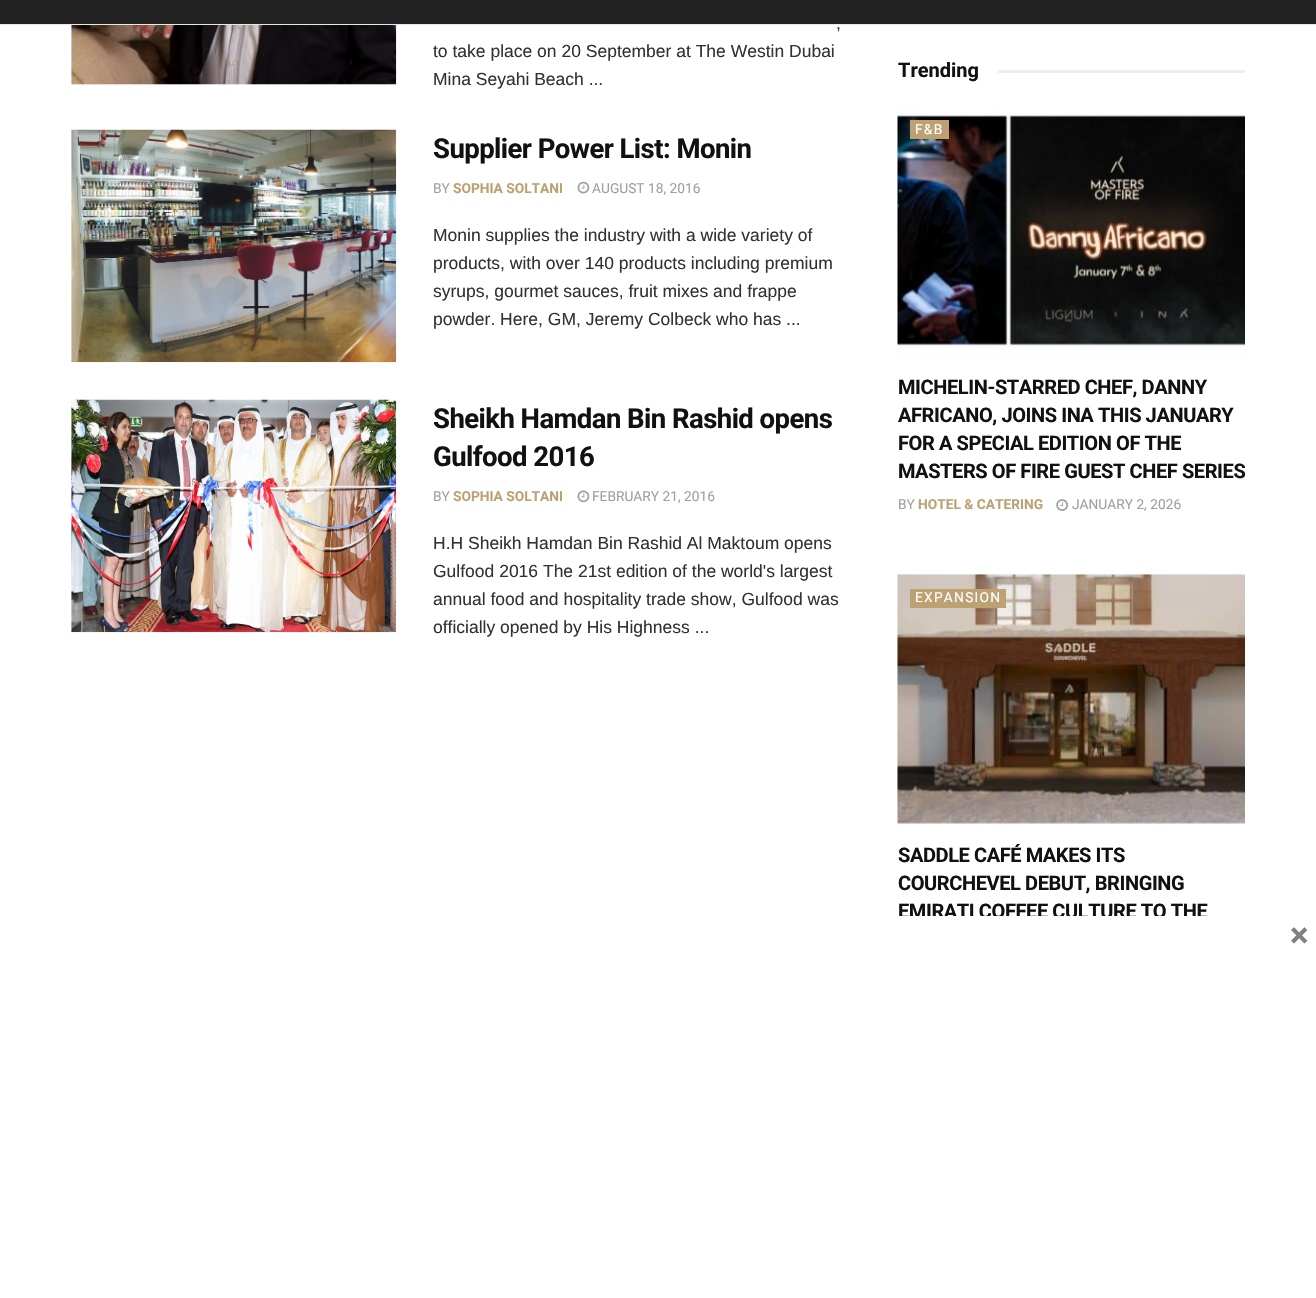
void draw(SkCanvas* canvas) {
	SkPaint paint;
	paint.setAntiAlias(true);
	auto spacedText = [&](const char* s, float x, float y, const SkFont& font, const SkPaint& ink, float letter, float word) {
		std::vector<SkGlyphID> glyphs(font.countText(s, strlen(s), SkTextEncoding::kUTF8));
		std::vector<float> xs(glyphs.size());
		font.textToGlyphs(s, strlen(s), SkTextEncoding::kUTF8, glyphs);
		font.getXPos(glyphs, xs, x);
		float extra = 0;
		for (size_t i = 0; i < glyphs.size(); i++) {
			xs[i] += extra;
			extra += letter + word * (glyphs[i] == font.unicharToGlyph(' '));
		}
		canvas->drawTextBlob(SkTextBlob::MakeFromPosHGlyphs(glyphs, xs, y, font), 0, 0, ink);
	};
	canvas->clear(0xffffffff);
	paint.setColor(0xff212121);
	canvas->drawRect(SkRect::MakeXYWH(0, 0, 1316, 24), paint);
	paint.setColor(0xffe8e8e8);
	canvas->drawRect(SkRect::MakeXYWH(0, 24, 1316, 1), paint);
	paint.setColor(0xfff7f7f7);
	canvas->drawRect(SkRect::MakeXYWH(71, 25, 325, 60), paint);
	canvas->drawImageRect(SkImages::DeferredFromEncodedData(SkData::MakeFromFileName("img1.png")), SkRect::MakeXYWH(71, 25, 326, 60), SkSamplingOptions());
	SkFont f1(fontMgr->matchFamilyStyle("Liberation Sans", SkFontStyle::Normal()), 17.5);
	f1.setSubpixel(true);
	paint.setColor(0xff323232);
	canvas->drawString(",", 836, 29, f1, paint);
	canvas->drawString("to take place on 20 September at The Westin Dubai", 433, 57, f1, paint);
	canvas->drawString("Mina Seyahi Beach ...", 433, 85, f1, paint);
	paint.setColor(0xfff7f7f7);
	canvas->drawRect(SkRect::MakeXYWH(71, 130, 325, 233), paint);
	canvas->drawImageRect(SkImages::DeferredFromEncodedData(SkData::MakeFromFileName("img2.png")), SkRect::MakeXYWH(71, 129, 326, 233), SkSamplingOptions());
	SkFont f2(fontMgr->matchFamilyStyle("Roboto", SkFontStyle::Bold()), 27.5);
	f2.setSubpixel(true);
	paint.setColor(0xff111111);
	spacedText("Supplier Power List: Monin", 433, 158, f2, paint, -0.55, 0);
	SkFont f3(fontMgr->matchFamilyStyle("Roboto", SkFontStyle::Normal()), 13.75);
	f3.setSubpixel(true);
	paint.setColor(0xffa0a0a0);
	canvas->drawString("BY", 433, 193, f3, paint);
	SkFont f4(fontMgr->matchFamilyStyle("Roboto", SkFontStyle::Bold()), 13.75);
	f4.setSubpixel(true);
	paint.setColor(0xffbda173);
	canvas->drawString("SOPHIA SOLTANI", 453, 193, f4, paint);
	canvas->drawImageRect(SkImages::DeferredFromEncodedData(SkData::MakeFromFileName("img3.png")), SkRect::MakeXYWH(577, 181, 13, 13), SkSamplingOptions());
	paint.setColor(0xffa0a0a0);
	canvas->drawString("AUGUST 18, 2016", 592, 193, f3, paint);
	paint.setColor(0xff323232);
	canvas->drawString("Monin supplies the industry with a wide variety of", 433, 241, f1, paint);
	canvas->drawString("products, with over 140 products including premium", 433, 269, f1, paint);
	canvas->drawString("syrups, gourmet sauces, fruit mixes and frappe", 433, 297, f1, paint);
	canvas->drawString("powder. Here, GM, Jeremy Colbeck who has ...", 433, 325, f1, paint);
	paint.setColor(0xfff7f7f7);
	canvas->drawRect(SkRect::MakeXYWH(71, 400, 325, 233), paint);
	canvas->drawImageRect(SkImages::DeferredFromEncodedData(SkData::MakeFromFileName("img4.png")), SkRect::MakeXYWH(71, 399, 326, 233), SkSamplingOptions());
	paint.setColor(0xff111111);
	spacedText("Sheikh Hamdan Bin Rashid opens", 433, 428, f2, paint, -0.55, 0);
	spacedText("Gulfood 2016", 433, 466, f2, paint, -0.55, 0);
	paint.setColor(0xffa0a0a0);
	canvas->drawString("BY", 433, 501, f3, paint);
	paint.setColor(0xffbda173);
	canvas->drawString("SOPHIA SOLTANI", 453, 501, f4, paint);
	canvas->drawImageRect(SkImages::DeferredFromEncodedData(SkData::MakeFromFileName("img5.png")), SkRect::MakeXYWH(577, 490, 13, 13), SkSamplingOptions());
	paint.setColor(0xffa0a0a0);
	canvas->drawString("FEBRUARY 21, 2016", 592, 501, f3, paint);
	paint.setColor(0xff323232);
	canvas->drawString("H.H Sheikh Hamdan Bin Rashid Al Maktoum opens", 433, 549, f1, paint);
	canvas->drawString("Gulfood 2016 The 21st edition of the world's largest", 433, 577, f1, paint);
	canvas->drawString("annual food and hospitality trade show, Gulfood was", 433, 605, f1, paint);
	canvas->drawString("officially opened by His Highness ...", 433, 633, f1, paint);
	SkFont f5(fontMgr->matchFamilyStyle("Roboto", SkFontStyle::Bold()), 20);
	f5.setSubpixel(true);
	paint.setColor(0xff111111);
	canvas->drawString("Trending", 898, 77, f5, paint);
	paint.setColor(0xffeeeeee);
	canvas->drawRect(SkRect::MakeXYWH(998, 70, 247, 3), paint);
	paint.setColor(0xfff7f7f7);
	canvas->drawRect(SkRect::MakeXYWH(898, 354, 347, 1), paint);
	canvas->drawImageRect(SkImages::DeferredFromEncodedData(SkData::MakeFromFileName("img6.png")), SkRect::MakeXYWH(897, 106, 1, 248), SkSamplingOptions());
	canvas->drawImageRect(SkImages::DeferredFromEncodedData(SkData::MakeFromFileName("img7.png")), SkRect::MakeXYWH(897, 106, 348, 249), SkSamplingOptions());
	paint.setColor(0xffbda173);
	canvas->drawRect(SkRect::MakeXYWH(910, 120, 39, 19), paint);
	paint.setColor(0xffffffff);
	spacedText("F&B", 915, 134, f3, paint, 1.25, 0);
	paint.setColor(0xff111111);
	spacedText("MICHELIN-STARRED CHEF, DANNY", 898, 394, f5, paint, -0.4, 0);
	spacedText("AFRICANO, JOINS INA THIS JANUARY", 898, 422, f5, paint, -0.4, 0);
	spacedText("FOR A SPECIAL EDITION OF THE", 898, 450, f5, paint, -0.4, 0);
	spacedText("MASTERS OF FIRE GUEST CHEF SERIES", 898, 478, f5, paint, -0.4, 0);
	paint.setColor(0xffa0a0a0);
	canvas->drawString("BY", 898, 509, f3, paint);
	paint.setColor(0xffbda173);
	canvas->drawString("HOTEL & CATERING", 918, 509, f4, paint);
	canvas->drawImageRect(SkImages::DeferredFromEncodedData(SkData::MakeFromFileName("img8.png")), SkRect::MakeXYWH(1056, 499, 12, 12), SkSamplingOptions());
	paint.setColor(0xffa0a0a0);
	canvas->drawString("JANUARY 2, 2026", 1072, 509, f3, paint);
	paint.setColor(0xfff7f7f7);
	canvas->drawRect(SkRect::MakeXYWH(898, 822, 347, 2), paint);
	canvas->drawRect(SkRect::MakeXYWH(897, 574, 347, 248), paint);
	canvas->drawImageRect(SkImages::DeferredFromEncodedData(SkData::MakeFromFileName("img9.png")), SkRect::MakeXYWH(897, 574, 348, 250), SkSamplingOptions());
	paint.setColor(0xffbda173);
	canvas->drawRect(SkRect::MakeXYWH(910, 589, 96, 19), paint);
	paint.setColor(0xffffffff);
	spacedText("EXPANSION", 915, 602, f3, paint, 1.25, 0);
	paint.setColor(0xff111111);
	spacedText("SADDLE CAFÉ MAKES ITS", 898, 862, f5, paint, -0.4, 0);
	spacedText("COURCHEVEL DEBUT, BRINGING", 898, 890, f5, paint, -0.4, 0);
	spacedText("EMIRATI COFFEE CULTURE TO THE", 898, 918, f5, paint, -0.4, 0);
	paint.setColor(0xffffffff);
	canvas->drawRect(SkRect::MakeXYWH(898, 916, 310, 3), paint);
	SkFont f6(fontMgr->matchFamilyStyle("Roboto", SkFontStyle::Bold()), 35);
	f6.setSubpixel(true);
	paint.setColor(0xff808080);
	canvas->drawString("×", 1290, 947, f6, paint);
}
